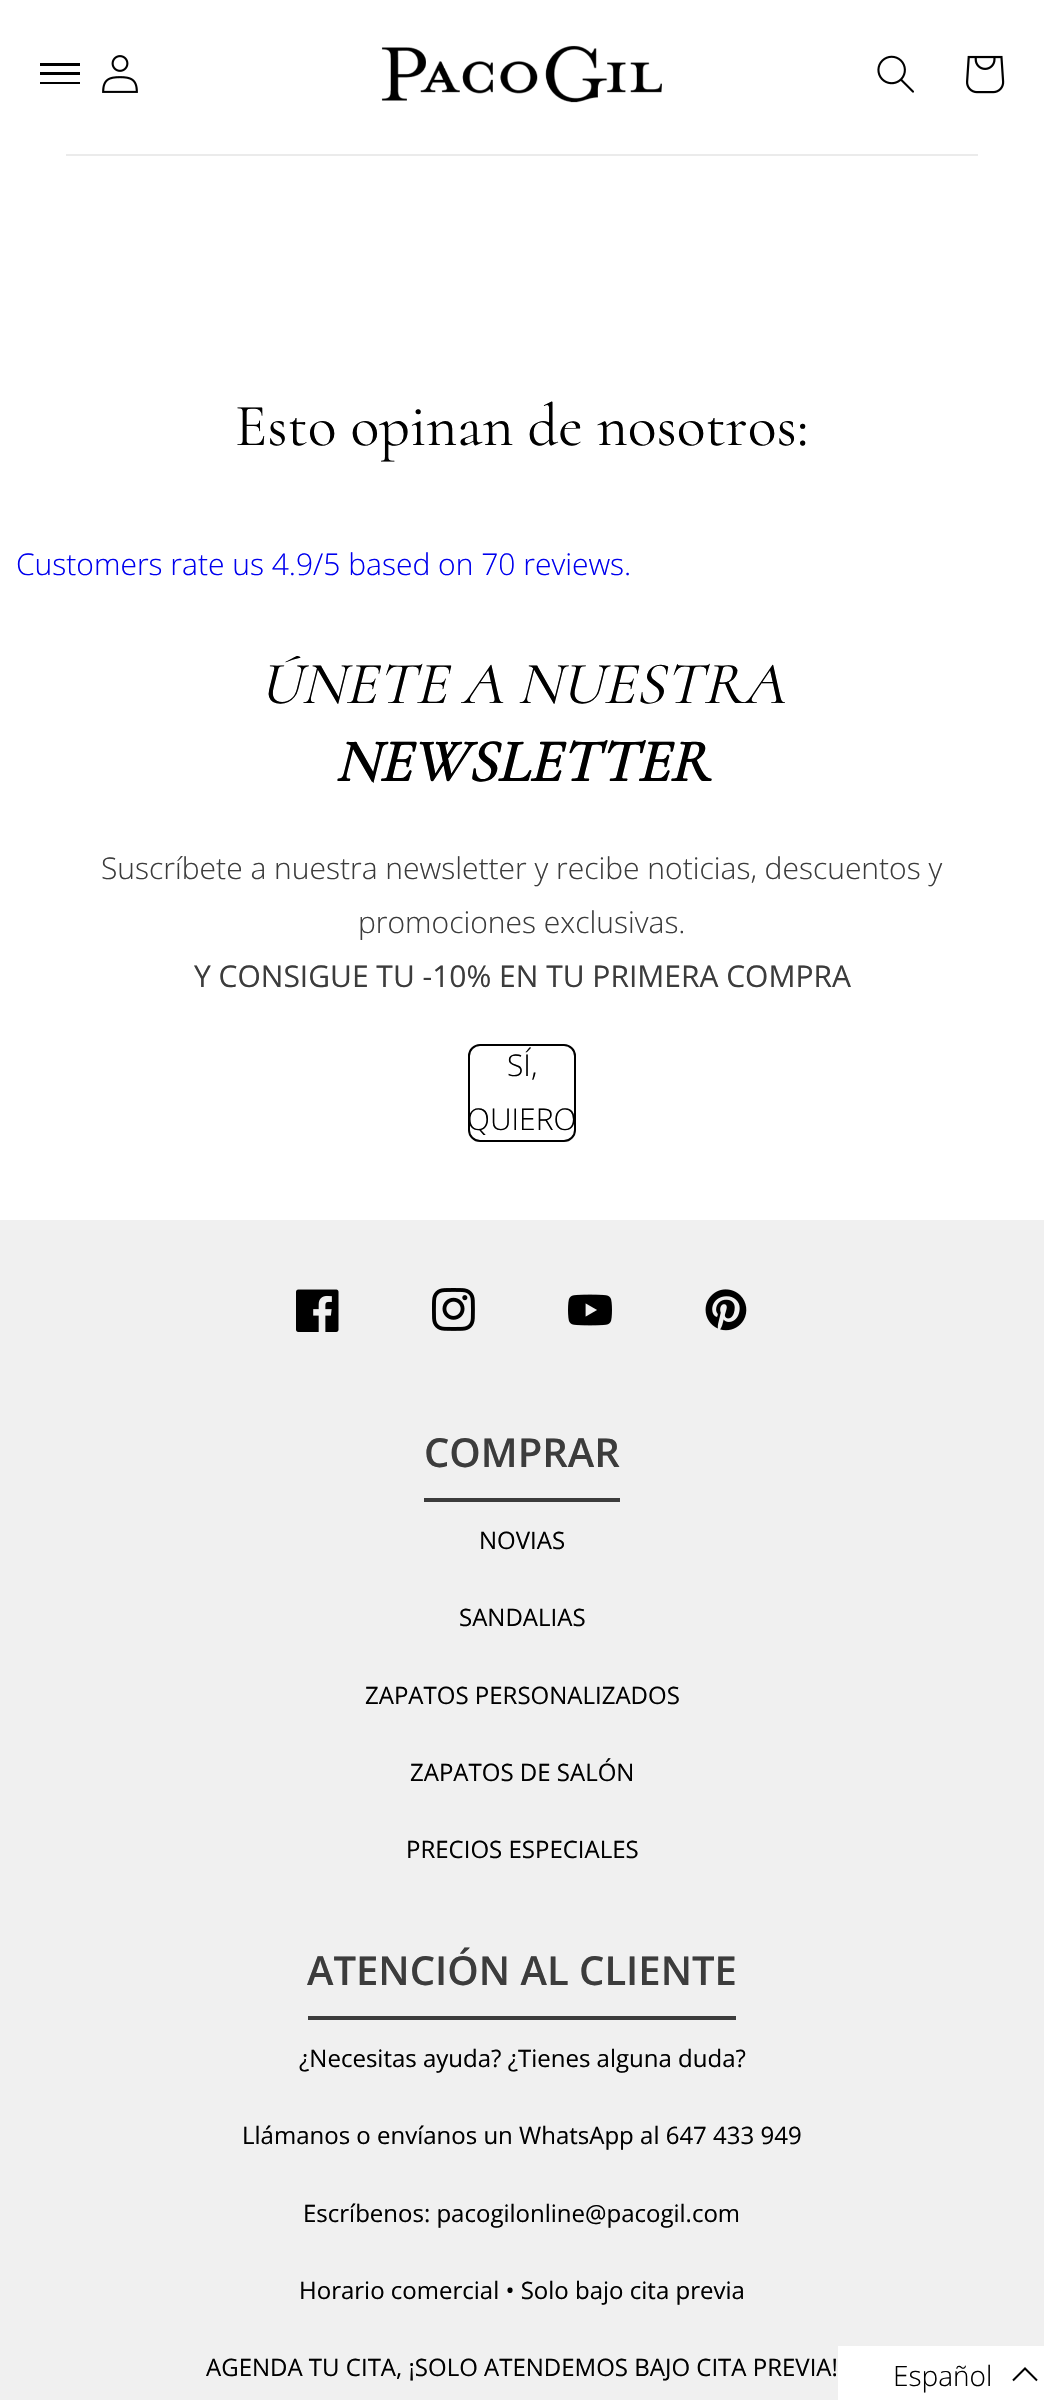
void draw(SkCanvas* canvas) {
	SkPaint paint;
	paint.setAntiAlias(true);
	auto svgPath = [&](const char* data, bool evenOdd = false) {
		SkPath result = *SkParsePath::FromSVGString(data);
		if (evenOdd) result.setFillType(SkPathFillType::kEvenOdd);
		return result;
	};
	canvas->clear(0xffffffff);
	paint.setColor(0xff000000);
	canvas->drawPath(svgPath("M80 66H40V63H80ZM80 75H40V72H80ZM40 84H80V82H40Z", true), paint);
	canvas->drawImageRect(SkImages::DeferredFromEncodedData(SkData::MakeFromFileName("img1.png")), SkRect::MakeXYWH(102, 55, 36, 38), SkSamplingOptions());
	canvas->drawImageRect(SkImages::DeferredFromEncodedData(SkData::MakeFromFileName("img2.png")), SkRect::MakeXYWH(381, 45, 281, 58), SkSamplingOptions());
	canvas->drawImageRect(SkImages::DeferredFromEncodedData(SkData::MakeFromFileName("img3.png")), SkRect::MakeXYWH(877, 55, 37, 38), SkSamplingOptions());
	canvas->drawImageRect(SkImages::DeferredFromEncodedData(SkData::MakeFromFileName("img4.png")), SkRect::MakeXYWH(966, 55, 39, 39), SkSamplingOptions());
	paint.setColor(0xffebebeb);
	canvas->drawRect(SkRect::MakeXYWH(66, 154, 912, 2), paint);
	SkFont f1(fontMgr->matchFamilyStyle("Cormorant", SkFontStyle::Normal()), 60);
	f1.setSubpixel(true);
	paint.setColor(0xff000000);
	canvas->drawString("Esto opinan de nosotros:", 235, 445, f1, paint);
	SkFont f2(fontMgr->matchFamilyStyle("Open Sans", SkFontStyle(300, SkFontStyle::kNormal_Width, SkFontStyle::kUpright_Slant)), 30);
	f2.setSubpixel(true);
	paint.setColor(0xff0000ee);
	canvas->drawString("Customers rate us 4.9/5 based on 70 reviews.", 16, 575, f2, paint);
	SkFont f3(fontMgr->matchFamilyStyle("Cormorant", SkFontStyle::Italic()), 60);
	f3.setSubpixel(true);
	paint.setColor(0xff000000);
	canvas->drawString("ÚNETE A NUESTRA", 259, 703, f3, paint);
	SkFont f4(fontMgr->matchFamilyStyle("Cormorant", SkFontStyle::BoldItalic()), 60);
	f4.setSubpixel(true);
	canvas->drawString("NEWSLETTER", 335, 781, f4, paint);
	paint.setColor(0xff3c3c3c);
	canvas->drawString("Suscríbete a nuestra newsletter y recibe noticias, descuentos y", 101, 879, f2, paint);
	canvas->drawString("promociones exclusivas.", 358, 933, f2, paint);
	SkFont f5(fontMgr->matchFamilyStyle("Open Sans", SkFontStyle::Normal()), 30);
	f5.setSubpixel(true);
	canvas->drawString("Y CONSIGUE TU -10% EN TU PRIMERA COMPRA", 194, 987, f5, paint);
	paint.setStroke(true);
	paint.setStrokeWidth(2);
	paint.setColor(0xff000000);
	canvas->drawRoundRect(SkRect::MakeXYWH(469, 1045, 106, 96), 11, 11, paint);
	paint.setStroke(false);
	canvas->drawString("SÍ,", 507, 1076, f2, paint);
	canvas->drawString("QUIERO", 467, 1130, f2, paint);
	paint.setColor(0xfff0f0f0);
	canvas->drawRect(SkRect::MakeXYWH(0, 1220, 1044, 1180), paint);
	canvas->drawImageRect(SkImages::DeferredFromEncodedData(SkData::MakeFromFileName("img5.png")), SkRect::MakeXYWH(296, 1289, 43, 43), SkSamplingOptions());
	canvas->drawImageRect(SkImages::DeferredFromEncodedData(SkData::MakeFromFileName("img6.png")), SkRect::MakeXYWH(432, 1288, 43, 43), SkSamplingOptions());
	canvas->drawImageRect(SkImages::DeferredFromEncodedData(SkData::MakeFromFileName("img7.png")), SkRect::MakeXYWH(568, 1294, 44, 32), SkSamplingOptions());
	canvas->drawImageRect(SkImages::DeferredFromEncodedData(SkData::MakeFromFileName("img8.png")), SkRect::MakeXYWH(705, 1289, 42, 42), SkSamplingOptions());
	SkFont f6(fontMgr->matchFamilyStyle("Open Sans", SkFontStyle(600, SkFontStyle::kNormal_Width, SkFontStyle::kUpright_Slant)), 40);
	f6.setSubpixel(true);
	paint.setColor(0xff3c3c3c);
	canvas->drawString("COMPRAR", 424, 1467, f6, paint);
	canvas->drawRect(SkRect::MakeXYWH(424, 1498, 196, 4), paint);
	SkFont f7(fontMgr->matchFamilyStyle("Open Sans", SkFontStyle::Normal()), 24);
	f7.setSubpixel(true);
	paint.setColor(0xff000000);
	canvas->drawString("NOVIAS", 479, 1549, f7, paint);
	canvas->drawString("SANDALIAS", 459, 1626, f7, paint);
	canvas->drawString("ZAPATOS PERSONALIZADOS", 365, 1704, f7, paint);
	canvas->drawString("ZAPATOS DE SALÓN", 410, 1781, f7, paint);
	canvas->drawString("PRECIOS ESPECIALES", 406, 1858, f7, paint);
	paint.setColor(0xff3c3c3c);
	canvas->drawString("ATENCIÓN AL CLIENTE", 307, 1985, f6, paint);
	canvas->drawRect(SkRect::MakeXYWH(308, 2016, 428, 4), paint);
	paint.setColor(0xff000000);
	canvas->drawString("¿Necesitas ayuda? ¿Tienes alguna duda?", 299, 2067, f7, paint);
	canvas->drawString("Llámanos o envíanos un WhatsApp al 647 433 949", 242, 2144, f7, paint);
	canvas->drawString("Escríbenos: pacogilonline@pacogil.com", 303, 2222, f7, paint);
	canvas->drawString("Horario comercial • Solo bajo cita previa", 299, 2299, f7, paint);
	canvas->drawString("AGENDA TU CITA, ¡SOLO ATENDEMOS BAJO CITA PREVIA!", 206, 2376, f7, paint);
	paint.setColor(0xffffffff);
	canvas->drawRect(SkRect::MakeXYWH(838, 2346, 206, 54), paint);
	SkFont f8(fontMgr->matchFamilyStyle("Open Sans", SkFontStyle(300, SkFontStyle::kNormal_Width, SkFontStyle::kUpright_Slant)), 28);
	f8.setSubpixel(true);
	paint.setColor(0xff000000);
	canvas->drawString("Español", 893, 2386, f8, paint);
	paint.setStroke(true);
	canvas->drawPath(svgPath("M1037 2380.5L1025 2368.5L1013 2380.5"), paint);
}
